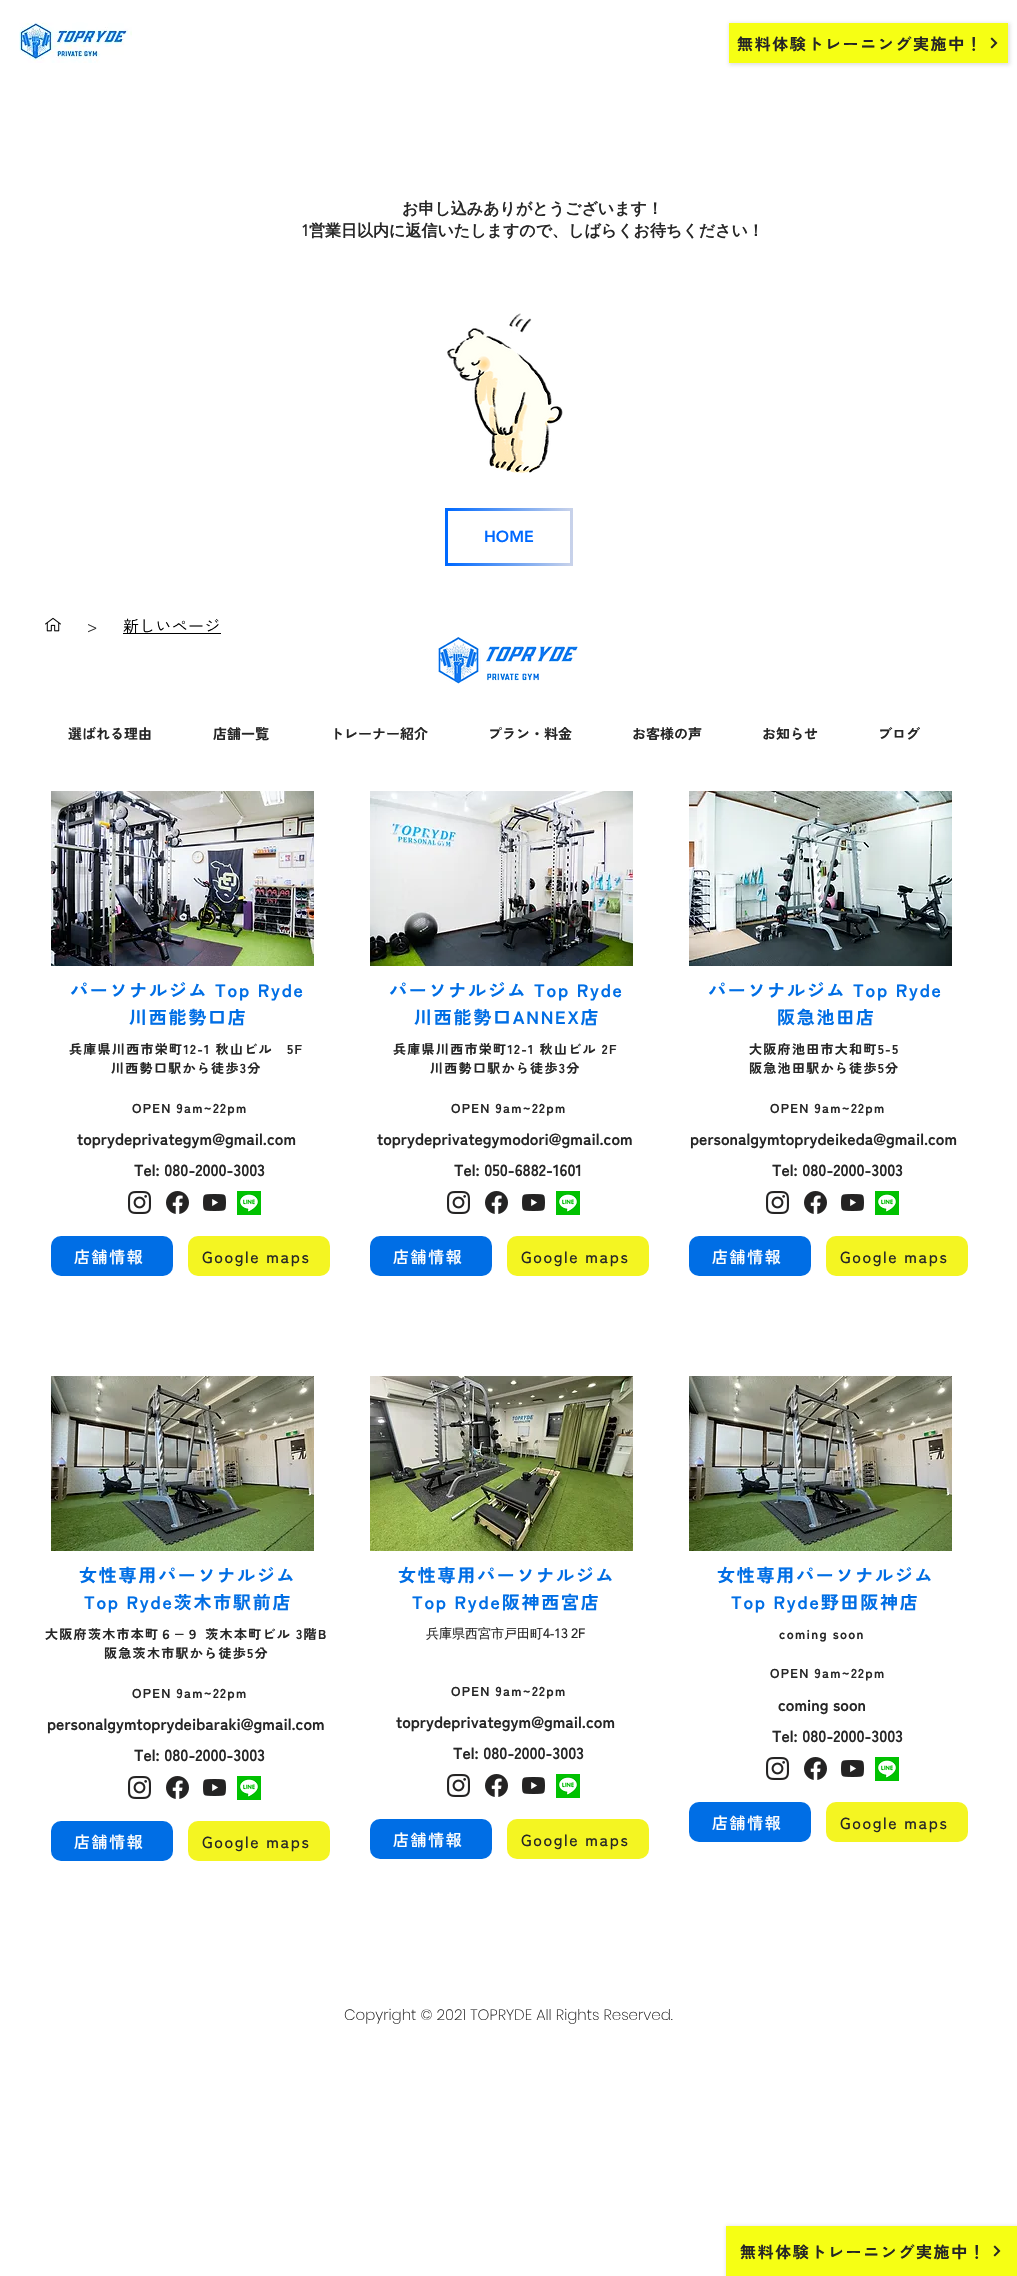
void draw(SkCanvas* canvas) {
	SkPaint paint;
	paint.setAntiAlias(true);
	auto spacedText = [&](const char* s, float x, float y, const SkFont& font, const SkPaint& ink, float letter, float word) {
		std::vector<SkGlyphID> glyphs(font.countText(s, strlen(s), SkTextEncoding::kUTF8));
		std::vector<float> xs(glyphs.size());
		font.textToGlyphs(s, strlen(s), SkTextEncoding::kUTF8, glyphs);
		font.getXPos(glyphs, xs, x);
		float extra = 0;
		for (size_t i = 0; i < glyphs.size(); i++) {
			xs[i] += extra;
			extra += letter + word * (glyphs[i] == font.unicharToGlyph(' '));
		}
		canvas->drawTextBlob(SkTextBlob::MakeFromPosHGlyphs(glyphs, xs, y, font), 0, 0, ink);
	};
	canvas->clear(0xffffffff);
	canvas->drawImageRect(SkImages::DeferredFromEncodedData(SkData::MakeFromFileName("img1.png")), SkRect::MakeXYWH(19, 22, 113, 41), SkSamplingOptions());
	paint.setColor(0x3d7d7d7d);
	paint.setMaskFilter(SkMaskFilter::MakeBlur(kNormal_SkBlurStyle, 2));
	canvas->drawRect(SkRect::MakeXYWH(729, 23, 281, 42), paint);
	paint.setMaskFilter(nullptr);
	paint.setColor(0xfff6ff14);
	canvas->drawRect(SkRect::MakeXYWH(729, 23, 279, 40), paint);
	SkFont f1(fontMgr->matchFamilyStyle("Zen Kaku Gothic New", SkFontStyle::Bold()), 16);
	f1.setSubpixel(true);
	paint.setColor(0xff262626);
	spacedText("無料体験トレーニング実施中！", 737, 50, f1, paint, 1.6, 0);
	canvas->drawImageRect(SkImages::DeferredFromEncodedData(SkData::MakeFromFileName("img2.png")), SkRect::MakeXYWH(990, 37, 8, 12), SkSamplingOptions());
	SkFont f2(fontMgr->matchFamilyStyle("WenQuanYi Zen Hei", SkFontStyle::Bold()), 16);
	f2.setSubpixel(true);
	canvas->drawString("お申し込みありがとうございます！", 402, 214, f2, paint);
	SkFont f3(fontMgr->matchFamilyStyle("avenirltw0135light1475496", SkFontStyle::Bold()), 16);
	f3.setSubpixel(true);
	canvas->drawString("1", 301, 236, f3, paint);
	canvas->drawString("営業日以内に返信いたしますので、しばらくお待ちください！", 309, 236, f2, paint);
	canvas->drawImageRect(SkImages::DeferredFromEncodedData(SkData::MakeFromFileName("img3.png")), SkRect::MakeXYWH(447, 313, 116, 160), SkSamplingOptions());
	canvas->drawImageRect(SkImages::DeferredFromEncodedData(SkData::MakeFromFileName("img4.png")), SkRect::MakeXYWH(445, 508, 128, 58), SkSamplingOptions());
	SkFont f4(fontMgr->matchFamilyStyle("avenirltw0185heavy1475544", SkFontStyle(900, SkFontStyle::kNormal_Width, SkFontStyle::kUpright_Slant)), 16);
	f4.setSubpixel(true);
	paint.setColor(0xff0069ff);
	canvas->drawString("HOME", 484, 542, f4, paint);
	canvas->drawImageRect(SkImages::DeferredFromEncodedData(SkData::MakeFromFileName("img5.png")), SkRect::MakeXYWH(45, 617, 16, 15), SkSamplingOptions());
	SkFont f5(fontMgr->matchFamilyStyle("Zen Kaku Gothic New", SkFontStyle::Normal()), 16);
	f5.setSubpixel(true);
	paint.setColor(0xff323232);
	canvas->drawString(">", 87, 632, f5, paint);
	paint.setColor(0xff000000);
	canvas->drawRect(SkRect::MakeXYWH(123, 633, 98, 1), paint);
	spacedText("新しいページ", 123, 632, f5, paint, 0.25, 0);
	canvas->drawImageRect(SkImages::DeferredFromEncodedData(SkData::MakeFromFileName("img6.png")), SkRect::MakeXYWH(438, 637, 140, 47), SkSamplingOptions());
	SkFont f6(fontMgr->matchFamilyStyle("Zen Kaku Gothic New", SkFontStyle::Bold()), 14);
	f6.setSubpixel(true);
	paint.setColor(0xff262626);
	canvas->drawString("選ばれる理由", 68, 739, f6, paint);
	canvas->drawString("店舗一覧", 213, 739, f6, paint);
	canvas->drawString("トレーナー紹介", 330, 739, f6, paint);
	canvas->drawString("プラン・料金", 488, 739, f6, paint);
	canvas->drawString("お客様の声", 632, 739, f6, paint);
	canvas->drawString("お知らせ", 762, 739, f6, paint);
	canvas->drawString("ブログ", 878, 739, f6, paint);
	canvas->drawImageRect(SkImages::DeferredFromEncodedData(SkData::MakeFromFileName("img7.png")), SkRect::MakeXYWH(51, 791, 263, 175), SkSamplingOptions());
	SkFont f7(fontMgr->matchFamilyStyle("Zen Kaku Gothic New", SkFontStyle::Bold()), 18);
	f7.setSubpixel(true);
	paint.setColor(0xff006ee5);
	spacedText("パーソナルジム Top Ryde", 70, 997, f7, paint, 1.75, 0);
	spacedText("川西能勢口店", 129, 1024, f7, paint, 1.75, 0);
	SkFont f8(fontMgr->matchFamilyStyle("Zen Kaku Gothic New", SkFontStyle::Bold()), 13);
	f8.setSubpixel(true);
	paint.setColor(0xff262626);
	spacedText("兵庫県川西市栄町12-1 秋山ビル　5F", 69, 1054, f8, paint, 1.3, 0);
	spacedText("川西勢口駅から徒歩3分", 111, 1073, f8, paint, 1.3, 0);
	spacedText("OPEN 9am~22pm", 132, 1113, f8, paint, 1.3, 0);
	canvas->drawString("toprydeprivategym@gmail.com", 77, 1145, f1, paint);
	canvas->drawString("Tel: 080-2000-3003", 134, 1176, f1, paint);
	canvas->drawImageRect(SkImages::DeferredFromEncodedData(SkData::MakeFromFileName("img8.png")), SkRect::MakeXYWH(128, 1191, 23, 23), SkSamplingOptions());
	canvas->drawImageRect(SkImages::DeferredFromEncodedData(SkData::MakeFromFileName("img9.png")), SkRect::MakeXYWH(166, 1191, 23, 23), SkSamplingOptions());
	canvas->drawImageRect(SkImages::DeferredFromEncodedData(SkData::MakeFromFileName("img10.png")), SkRect::MakeXYWH(203, 1194, 23, 17), SkSamplingOptions());
	canvas->drawImageRect(SkImages::DeferredFromEncodedData(SkData::MakeFromFileName("img11.png")), SkRect::MakeXYWH(237, 1191, 24, 24), SkSamplingOptions());
	paint.setColor(0xff006ee5);
	canvas->drawRoundRect(SkRect::MakeXYWH(51, 1236, 122, 40), 10, 10, paint);
	SkFont f9(fontMgr->matchFamilyStyle("Zen Kaku Gothic New", SkFontStyle(500, SkFontStyle::kNormal_Width, SkFontStyle::kUpright_Slant)), 16);
	f9.setSubpixel(true);
	paint.setColor(0xffffffff);
	spacedText("店舗情報", 74, 1263, f9, paint, 1.6, 0);
	paint.setColor(0xfff4f522);
	canvas->drawRoundRect(SkRect::MakeXYWH(188, 1236, 142, 40), 10, 10, paint);
	paint.setColor(0xff262626);
	spacedText("Google maps", 202, 1263, f9, paint, 1.6, 0);
	canvas->drawImageRect(SkImages::DeferredFromEncodedData(SkData::MakeFromFileName("img12.png")), SkRect::MakeXYWH(51, 1376, 263, 175), SkSamplingOptions());
	paint.setColor(0xff006ee5);
	spacedText("女性専用パーソナルジム", 79, 1582, f7, paint, 1.75, 0);
	spacedText("Top Ryde茨木市駅前店", 84, 1609, f7, paint, 1.75, 0);
	paint.setColor(0xff262626);
	spacedText("大阪府茨木市本町６−９ 茨木本町ビル 3階B", 45, 1639, f8, paint, 1.3, 0);
	spacedText("阪急茨木市駅から徒歩5分", 104, 1658, f8, paint, 1.3, 0);
	spacedText("OPEN 9am~22pm", 132, 1698, f8, paint, 1.3, 0);
	canvas->drawString("personalgymtoprydeibaraki@gmail.com", 47, 1730, f1, paint);
	canvas->drawString("Tel: 080-2000-3003", 134, 1761, f1, paint);
	canvas->drawImageRect(SkImages::DeferredFromEncodedData(SkData::MakeFromFileName("img8.png")), SkRect::MakeXYWH(128, 1776, 23, 23), SkSamplingOptions());
	canvas->drawImageRect(SkImages::DeferredFromEncodedData(SkData::MakeFromFileName("img9.png")), SkRect::MakeXYWH(166, 1776, 23, 23), SkSamplingOptions());
	canvas->drawImageRect(SkImages::DeferredFromEncodedData(SkData::MakeFromFileName("img10.png")), SkRect::MakeXYWH(203, 1779, 23, 17), SkSamplingOptions());
	canvas->drawImageRect(SkImages::DeferredFromEncodedData(SkData::MakeFromFileName("img11.png")), SkRect::MakeXYWH(237, 1776, 24, 24), SkSamplingOptions());
	paint.setColor(0xff006ee5);
	canvas->drawRoundRect(SkRect::MakeXYWH(51, 1821, 122, 40), 10, 10, paint);
	paint.setColor(0xffffffff);
	spacedText("店舗情報", 74, 1848, f9, paint, 1.6, 0);
	paint.setColor(0xfff4f522);
	canvas->drawRoundRect(SkRect::MakeXYWH(188, 1821, 142, 40), 10, 10, paint);
	paint.setColor(0xff262626);
	spacedText("Google maps", 202, 1848, f9, paint, 1.6, 0);
	canvas->drawImageRect(SkImages::DeferredFromEncodedData(SkData::MakeFromFileName("img13.png")), SkRect::MakeXYWH(370, 791, 263, 175), SkSamplingOptions());
	paint.setColor(0xff006ee5);
	spacedText("パーソナルジム Top Ryde", 389, 997, f7, paint, 1.75, 0);
	spacedText("川西能勢口ANNEX店", 414, 1024, f7, paint, 1.75, 0);
	paint.setColor(0xff262626);
	spacedText("兵庫県川西市栄町12-1 秋山ビル 2F", 393, 1054, f8, paint, 1.3, 0);
	spacedText("川西勢口駅から徒歩3分", 430, 1073, f8, paint, 1.3, 0);
	spacedText("OPEN 9am~22pm", 451, 1113, f8, paint, 1.3, 0);
	canvas->drawString("toprydeprivategymodori@gmail.com", 377, 1145, f1, paint);
	canvas->drawString("Tel: 050-6882-1601", 454, 1176, f1, paint);
	canvas->drawImageRect(SkImages::DeferredFromEncodedData(SkData::MakeFromFileName("img8.png")), SkRect::MakeXYWH(447, 1191, 23, 23), SkSamplingOptions());
	canvas->drawImageRect(SkImages::DeferredFromEncodedData(SkData::MakeFromFileName("img9.png")), SkRect::MakeXYWH(485, 1191, 23, 23), SkSamplingOptions());
	canvas->drawImageRect(SkImages::DeferredFromEncodedData(SkData::MakeFromFileName("img10.png")), SkRect::MakeXYWH(522, 1194, 23, 17), SkSamplingOptions());
	canvas->drawImageRect(SkImages::DeferredFromEncodedData(SkData::MakeFromFileName("img11.png")), SkRect::MakeXYWH(556, 1191, 24, 24), SkSamplingOptions());
	paint.setColor(0xff006ee5);
	canvas->drawRoundRect(SkRect::MakeXYWH(370, 1236, 122, 40), 10, 10, paint);
	paint.setColor(0xffffffff);
	spacedText("店舗情報", 393, 1263, f9, paint, 1.6, 0);
	paint.setColor(0xfff4f522);
	canvas->drawRoundRect(SkRect::MakeXYWH(507, 1236, 142, 40), 10, 10, paint);
	paint.setColor(0xff262626);
	spacedText("Google maps", 521, 1263, f9, paint, 1.6, 0);
	canvas->drawImageRect(SkImages::DeferredFromEncodedData(SkData::MakeFromFileName("img14.png")), SkRect::MakeXYWH(370, 1376, 263, 175), SkSamplingOptions());
	paint.setColor(0xff006ee5);
	spacedText("女性専用パーソナルジム", 398, 1582, f7, paint, 1.75, 0);
	spacedText("Top Ryde阪神西宮店", 412, 1609, f7, paint, 1.75, 0);
	SkFont f10(fontMgr->matchFamilyStyle("WenQuanYi Zen Hei", SkFontStyle(500, SkFontStyle::kNormal_Width, SkFontStyle::kUpright_Slant)), 13);
	f10.setSubpixel(true);
	paint.setColor(0xff262626);
	canvas->drawString("兵庫県西宮市戸田町", 426, 1638, f10, paint);
	SkFont f11(fontMgr->matchFamilyStyle("avenirltw0135light1475496", SkFontStyle::Bold()), 13);
	f11.setSubpixel(true);
	canvas->drawString("4-13 2F", 543, 1638, f11, paint);
	spacedText("OPEN 9am~22pm", 451, 1696, f8, paint, 1.3, 0);
	canvas->drawString("toprydeprivategym@gmail.com", 396, 1728, f1, paint);
	canvas->drawString("Tel: 080-2000-3003", 453, 1759, f1, paint);
	canvas->drawImageRect(SkImages::DeferredFromEncodedData(SkData::MakeFromFileName("img8.png")), SkRect::MakeXYWH(447, 1774, 23, 23), SkSamplingOptions());
	canvas->drawImageRect(SkImages::DeferredFromEncodedData(SkData::MakeFromFileName("img9.png")), SkRect::MakeXYWH(485, 1774, 23, 23), SkSamplingOptions());
	canvas->drawImageRect(SkImages::DeferredFromEncodedData(SkData::MakeFromFileName("img10.png")), SkRect::MakeXYWH(522, 1777, 23, 17), SkSamplingOptions());
	canvas->drawImageRect(SkImages::DeferredFromEncodedData(SkData::MakeFromFileName("img11.png")), SkRect::MakeXYWH(556, 1774, 24, 24), SkSamplingOptions());
	paint.setColor(0xff006ee5);
	canvas->drawRoundRect(SkRect::MakeXYWH(370, 1819, 122, 40), 10, 10, paint);
	paint.setColor(0xffffffff);
	spacedText("店舗情報", 393, 1846, f9, paint, 1.6, 0);
	paint.setColor(0xfff4f522);
	canvas->drawRoundRect(SkRect::MakeXYWH(507, 1819, 142, 40), 10, 10, paint);
	paint.setColor(0xff262626);
	spacedText("Google maps", 521, 1846, f9, paint, 1.6, 0);
	canvas->drawImageRect(SkImages::DeferredFromEncodedData(SkData::MakeFromFileName("img15.png")), SkRect::MakeXYWH(689, 791, 263, 175), SkSamplingOptions());
	paint.setColor(0xff006ee5);
	spacedText("パーソナルジム Top Ryde", 708, 997, f7, paint, 1.75, 0);
	spacedText("阪急池田店", 777, 1024, f7, paint, 1.75, 0);
	paint.setColor(0xff262626);
	spacedText("大阪府池田市大和町5-5", 749, 1054, f8, paint, 1.3, 0);
	spacedText("阪急池田駅から徒歩5分", 749, 1073, f8, paint, 1.3, 0);
	spacedText("OPEN 9am~22pm", 770, 1113, f8, paint, 1.3, 0);
	canvas->drawString("personalgymtoprydeikeda@gmail.com", 690, 1145, f1, paint);
	canvas->drawString("Tel: 080-2000-3003", 772, 1176, f1, paint);
	canvas->drawImageRect(SkImages::DeferredFromEncodedData(SkData::MakeFromFileName("img8.png")), SkRect::MakeXYWH(766, 1191, 23, 23), SkSamplingOptions());
	canvas->drawImageRect(SkImages::DeferredFromEncodedData(SkData::MakeFromFileName("img9.png")), SkRect::MakeXYWH(804, 1191, 23, 23), SkSamplingOptions());
	canvas->drawImageRect(SkImages::DeferredFromEncodedData(SkData::MakeFromFileName("img10.png")), SkRect::MakeXYWH(841, 1194, 23, 17), SkSamplingOptions());
	canvas->drawImageRect(SkImages::DeferredFromEncodedData(SkData::MakeFromFileName("img11.png")), SkRect::MakeXYWH(875, 1191, 24, 24), SkSamplingOptions());
	paint.setColor(0xff006ee5);
	canvas->drawRoundRect(SkRect::MakeXYWH(689, 1236, 122, 40), 10, 10, paint);
	paint.setColor(0xffffffff);
	spacedText("店舗情報", 712, 1263, f9, paint, 1.6, 0);
	paint.setColor(0xfff4f522);
	canvas->drawRoundRect(SkRect::MakeXYWH(826, 1236, 142, 40), 10, 10, paint);
	paint.setColor(0xff262626);
	spacedText("Google maps", 840, 1263, f9, paint, 1.6, 0);
	canvas->drawImageRect(SkImages::DeferredFromEncodedData(SkData::MakeFromFileName("img12.png")), SkRect::MakeXYWH(689, 1376, 263, 175), SkSamplingOptions());
	paint.setColor(0xff006ee5);
	spacedText("女性専用パーソナルジム", 717, 1582, f7, paint, 1.75, 0);
	spacedText("Top Ryde野田阪神店", 731, 1609, f7, paint, 1.75, 0);
	paint.setColor(0xff262626);
	spacedText("coming soon", 779, 1639, f8, paint, 1.3, 0);
	spacedText("OPEN 9am~22pm", 770, 1678, f8, paint, 1.3, 0);
	canvas->drawString("coming soon", 778, 1711, f1, paint);
	canvas->drawString("Tel: 080-2000-3003", 772, 1742, f1, paint);
	canvas->drawImageRect(SkImages::DeferredFromEncodedData(SkData::MakeFromFileName("img8.png")), SkRect::MakeXYWH(766, 1757, 23, 23), SkSamplingOptions());
	canvas->drawImageRect(SkImages::DeferredFromEncodedData(SkData::MakeFromFileName("img9.png")), SkRect::MakeXYWH(804, 1757, 23, 23), SkSamplingOptions());
	canvas->drawImageRect(SkImages::DeferredFromEncodedData(SkData::MakeFromFileName("img10.png")), SkRect::MakeXYWH(841, 1760, 23, 17), SkSamplingOptions());
	canvas->drawImageRect(SkImages::DeferredFromEncodedData(SkData::MakeFromFileName("img11.png")), SkRect::MakeXYWH(875, 1757, 24, 24), SkSamplingOptions());
	paint.setColor(0xff006ee5);
	canvas->drawRoundRect(SkRect::MakeXYWH(689, 1802, 122, 40), 10, 10, paint);
	paint.setColor(0xffffffff);
	spacedText("店舗情報", 712, 1829, f9, paint, 1.6, 0);
	paint.setColor(0xfff4f522);
	canvas->drawRoundRect(SkRect::MakeXYWH(826, 1802, 142, 40), 10, 10, paint);
	paint.setColor(0xff262626);
	spacedText("Google maps", 840, 1829, f9, paint, 1.6, 0);
	SkFont f12(fontMgr->matchFamilyStyle("Poppins", SkFontStyle(200, SkFontStyle::kNormal_Width, SkFontStyle::kUpright_Slant)), 15);
	f12.setSubpixel(true);
	canvas->drawString("Copyright © 2021 TOPRYDE All Rights Reserved.", 344, 2020, f12, paint);
	paint.setColor(0x3d7d7d7d);
	paint.setMaskFilter(SkMaskFilter::MakeBlur(kNormal_SkBlurStyle, 2));
	canvas->drawRect(SkRect::MakeXYWH(726, 2226, 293, 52), paint);
	paint.setMaskFilter(nullptr);
	paint.setColor(0xfff6ff14);
	canvas->drawRect(SkRect::MakeXYWH(726, 2226, 291, 50), paint);
	paint.setColor(0xff262626);
	spacedText("無料体験トレーニング実施中！", 740, 2258, f1, paint, 1.6, 0);
	canvas->drawImageRect(SkImages::DeferredFromEncodedData(SkData::MakeFromFileName("img2.png")), SkRect::MakeXYWH(993, 2245, 8, 12), SkSamplingOptions());
}
